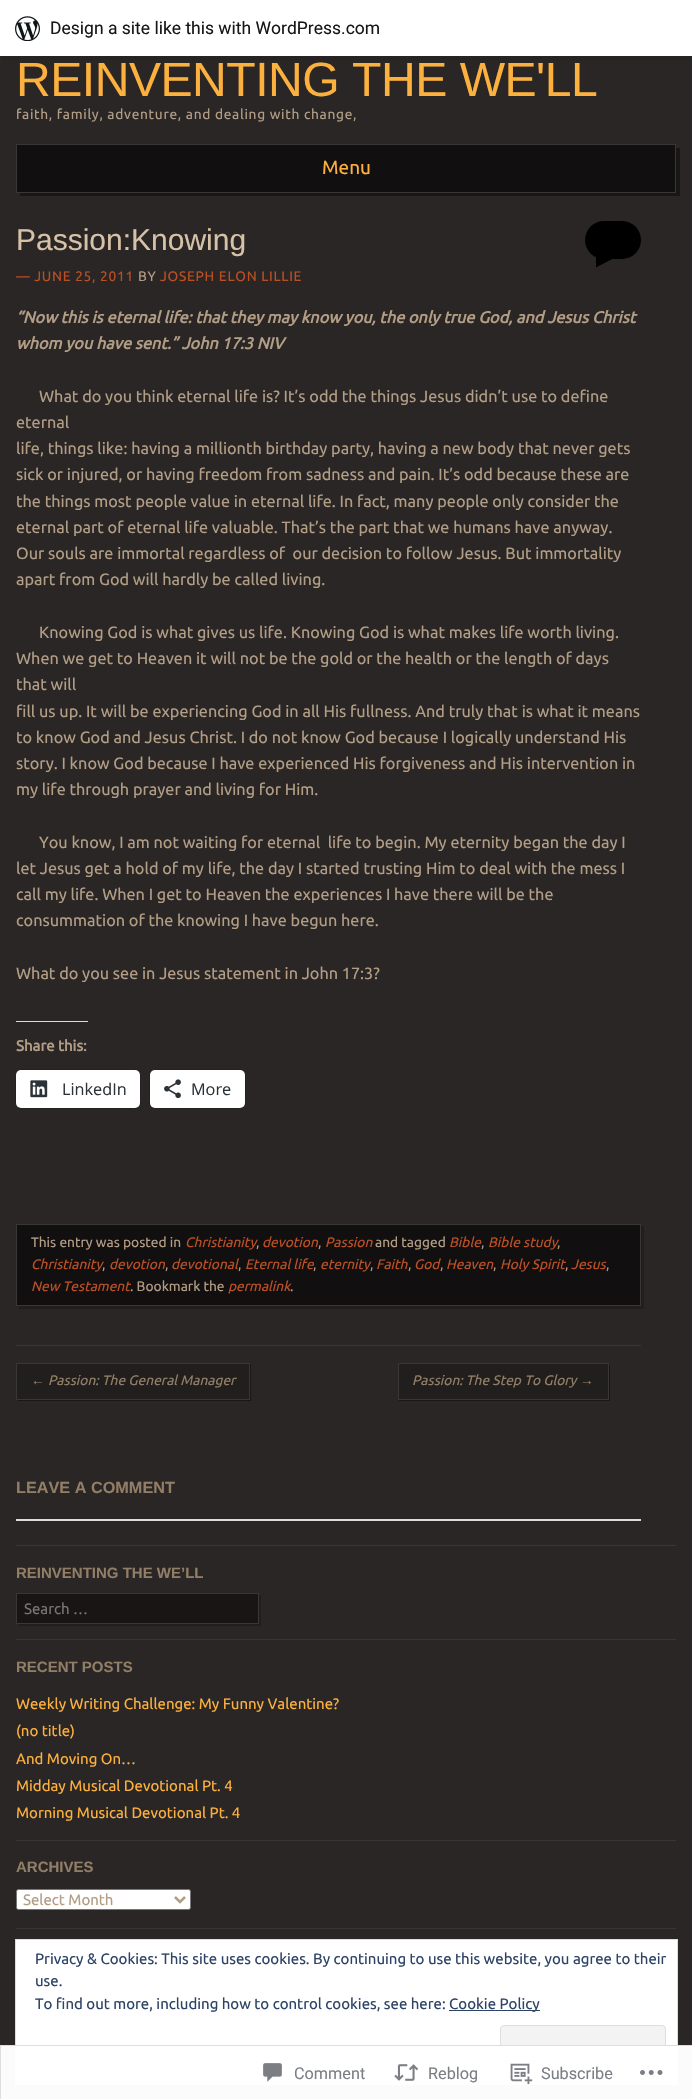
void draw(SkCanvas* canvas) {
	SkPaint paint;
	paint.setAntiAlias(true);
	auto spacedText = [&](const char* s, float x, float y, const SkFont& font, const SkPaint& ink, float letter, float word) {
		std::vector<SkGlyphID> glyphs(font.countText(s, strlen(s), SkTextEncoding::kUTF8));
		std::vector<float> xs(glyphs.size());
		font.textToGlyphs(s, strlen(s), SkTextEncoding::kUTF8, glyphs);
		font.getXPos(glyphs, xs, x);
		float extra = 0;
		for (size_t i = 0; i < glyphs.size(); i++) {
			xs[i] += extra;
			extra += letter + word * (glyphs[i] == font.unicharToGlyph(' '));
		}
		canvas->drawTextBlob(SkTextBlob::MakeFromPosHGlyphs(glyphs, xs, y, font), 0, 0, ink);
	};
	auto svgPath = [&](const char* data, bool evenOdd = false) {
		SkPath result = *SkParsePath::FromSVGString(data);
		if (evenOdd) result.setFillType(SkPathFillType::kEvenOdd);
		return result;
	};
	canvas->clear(0xff292625);
	paint.setColor(0xff262322);
	canvas->drawPath(svgPath("M1 56V60H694V4H692V56Z"), paint);
	paint.setColor(0xffffffff);
	canvas->drawRect(SkRect::MakeXYWH(0, 0, 692, 56), paint);
	canvas->drawImageRect(SkImages::DeferredFromEncodedData(SkData::MakeFromFileName("img1.png")), SkRect::MakeXYWH(15, 16, 25, 25), SkSamplingOptions());
	SkFont f1(fontMgr->matchFamilyStyle("Roboto", SkFontStyle::Normal()), 17.5);
	f1.setSubpixel(true);
	paint.setColor(0xff171717);
	canvas->drawString("Design a site like this with WordPress.com", 50, 34, f1, paint);
	SkFont f2(fontMgr->matchFamilyStyle("Liberation Sans", SkFontStyle::Normal()), 48.1);
	f2.setSubpixel(true);
	paint.setColor(0xfffcb03e);
	spacedText("REINVENTING THE WE'LL", 16, 96, f2, paint, -0.5, 0);
	SkFont f3(fontMgr->matchFamilyStyle("Ubuntu", SkFontStyle::Normal()), 13.75);
	f3.setSubpixel(true);
	paint.setColor(0xffb29d85);
	spacedText("faith, family, adventure, and dealing with change,", 16, 119, f3, paint, 0.7, 0);
	paint.setColor(0xff191716);
	canvas->drawPath(svgPath("M20 192V196H680V148H676V192Z"), paint);
	paint.setColor(0xff120f10);
	canvas->drawRect(SkRect::MakeXYWH(16.5, 144.5, 659, 48), paint);
	paint.setStroke(true);
	paint.setStrokeWidth(1);
	paint.setColor(0xff393636);
	canvas->drawRect(SkRect::MakeXYWH(16.5, 144.5, 659, 48), paint);
	SkFont f4(fontMgr->matchFamilyStyle("Ubuntu", SkFontStyle::Normal()), 19);
	f4.setSubpixel(true);
	paint.setStroke(false);
	paint.setColor(0xfffcb03e);
	canvas->drawString("Menu", 322, 174, f4, paint);
	paint.setColor(0xff393636);
	canvas->drawRect(SkRect::MakeXYWH(16, 1345, 625, 1), paint);
	SkFont f5(fontMgr->matchFamilyStyle("Liberation Sans", SkFontStyle::Normal()), 30);
	f5.setSubpixel(true);
	paint.setColor(0xffd7c2a8);
	canvas->drawString("Passion:Knowing", 16, 250, f5, paint);
	paint.setColor(0xff000000);
	canvas->drawRoundRect(SkRect::MakeXYWH(585, 221, 56, 38), 19, 19, paint);
	canvas->drawPath(svgPath("M596 267.5V255H620Z"), paint);
	paint.setColor(0xffb94f25);
	spacedText("— JUNE 25, 2011", 16, 281, f3, paint, 0.7, 0);
	paint.setColor(0xffb29d85);
	spacedText("BY", 138, 281, f3, paint, 0.7, 0);
	paint.setColor(0xffb94f25);
	spacedText("JOSEPH ELON LILLIE", 160, 281, f3, paint, 0.7, 0);
	SkFont f6(fontMgr->matchFamilyStyle("Ubuntu", SkFontStyle::BoldItalic()), 16.25);
	f6.setSubpixel(true);
	paint.setColor(0xffb29d85);
	canvas->drawString("“Now this is eternal life: that they may know you, the only true God, and Jesus Christ", 16, 323, f6, paint);
	canvas->drawString("whom you have sent.” John 17:3 NIV", 16, 349, f6, paint);
	SkFont f7(fontMgr->matchFamilyStyle("Ubuntu", SkFontStyle::Normal()), 16.25);
	f7.setSubpixel(true);
	canvas->drawString("What do you think eternal life is? It’s odd the things Jesus didn’t use to define", 39, 402, f7, paint);
	canvas->drawString("eternal", 16, 428, f7, paint);
	canvas->drawString("life, things like: having a millionth birthday party, having a new body that never gets", 16, 454, f7, paint);
	canvas->drawString("sick or injured, or having freedom from sadness and pain. It’s odd because these are", 16, 480, f7, paint);
	canvas->drawString("the things most people value in eternal life. In fact, many people only consider the", 16, 507, f7, paint);
	canvas->drawString("eternal part of eternal life valuable. That’s the part that we humans have anyway.", 16, 533, f7, paint);
	canvas->drawString("Our souls are immortal regardless of  our decision to follow Jesus. But immortality", 16, 559, f7, paint);
	canvas->drawString("apart from God will hardly be called living.", 16, 585, f7, paint);
	canvas->drawString("Knowing God is what gives us life. Knowing God is what makes life worth living.", 39, 638, f7, paint);
	canvas->drawString("When we get to Heaven it will not be the gold or the health or the length of days", 16, 664, f7, paint);
	canvas->drawString("that will", 16, 690, f7, paint);
	canvas->drawString("fill us up. It will be experiencing God in all His fullness. And truly that is what it means", 16, 717, f7, paint);
	canvas->drawString("to know God and Jesus Christ. I do not know God because I logically understand His", 16, 743, f7, paint);
	canvas->drawString("story. I know God because I have experienced His forgiveness and His intervention in", 16, 769, f7, paint);
	canvas->drawString("my life through prayer and living for Him.", 16, 795, f7, paint);
	canvas->drawString("You know, I am not waiting for eternal  life to begin. My eternity began the day I", 39, 848, f7, paint);
	canvas->drawString("let Jesus get a hold of my life, the day I started trusting Him to deal with the mess I", 16, 874, f7, paint);
	canvas->drawString("call my life. When I get to Heaven the experiences I have there will be the", 16, 900, f7, paint);
	canvas->drawString("consummation of the knowing I have begun here.", 16, 926, f7, paint);
	canvas->drawString("What do you see in Jesus statement in John 17:3?", 16, 979, f7, paint);
	paint.setColor(0xffdcdcde);
	canvas->drawRect(SkRect::MakeXYWH(16, 1021, 72, 1), paint);
	SkFont f8(fontMgr->matchFamilyStyle("Ubuntu", SkFontStyle::Bold()), 15);
	f8.setSubpixel(true);
	paint.setColor(0xffb29d85);
	canvas->drawString("Share this:", 16, 1051, f8, paint);
	paint.setStroke(true);
	paint.setColor(0xff242121);
	canvas->drawRoundRect(SkRect::MakeXYWH(15.5, 1069.5, 125, 39), 5.5, 5.5, paint);
	paint.setStroke(false);
	paint.setColor(0xffffffff);
	canvas->drawRoundRect(SkRect::MakeXYWH(16, 1070, 124, 38), 5, 5, paint);
	canvas->drawImageRect(SkImages::DeferredFromEncodedData(SkData::MakeFromFileName("img2.png")), SkRect::MakeXYWH(30, 1080, 18, 18), SkSamplingOptions());
	SkFont f9(fontMgr->matchFamilyStyle("Open Sans", SkFontStyle::Normal()), 16.25);
	f9.setSubpixel(true);
	paint.setColor(0xff2c3338);
	canvas->drawString("LinkedIn", 62, 1095, f9, paint);
	paint.setStroke(true);
	paint.setColor(0xff242121);
	canvas->drawRoundRect(SkRect::MakeXYWH(149.5, 1069.5, 96, 39), 5.5, 5.5, paint);
	paint.setStroke(false);
	paint.setColor(0xffffffff);
	canvas->drawRoundRect(SkRect::MakeXYWH(150, 1070, 95, 38), 5, 5, paint);
	canvas->drawImageRect(SkImages::DeferredFromEncodedData(SkData::MakeFromFileName("img3.png")), SkRect::MakeXYWH(164, 1079, 17, 20), SkSamplingOptions());
	paint.setColor(0xff2c3338);
	canvas->drawString("More", 191, 1095, f9, paint);
	paint.setColor(0xff211e1e);
	canvas->drawPath(svgPath("M19 1306V1309H644V1226H641V1306Z"), paint);
	paint.setColor(0xff120f10);
	canvas->drawRect(SkRect::MakeXYWH(16.5, 1224.5, 624, 81), paint);
	paint.setStroke(true);
	paint.setColor(0xff393636);
	canvas->drawRect(SkRect::MakeXYWH(16.5, 1224.5, 624, 81), paint);
	paint.setStroke(false);
	paint.setColor(0xffb29d85);
	canvas->drawString("This entry was posted in", 31, 1247, f3, paint);
	SkFont f10(fontMgr->matchFamilyStyle("Ubuntu", SkFontStyle::Italic()), 13.75);
	f10.setSubpixel(true);
	paint.setColor(0xffb94f25);
	canvas->drawString("Christianity", 185, 1247, f10, paint);
	canvas->drawString("devotion", 262, 1247, f10, paint);
	canvas->drawString("Passion", 325, 1247, f10, paint);
	paint.setColor(0xffb29d85);
	canvas->drawString("and tagged", 375, 1247, f3, paint);
	paint.setColor(0xffb94f25);
	canvas->drawString("Bible", 449, 1247, f10, paint);
	canvas->drawString("Bible study", 488, 1247, f10, paint);
	paint.setColor(0xffb29d85);
	canvas->drawString(",", 256, 1247, f3, paint);
	canvas->drawString(",", 318, 1247, f3, paint);
	canvas->drawString(",", 481, 1247, f3, paint);
	canvas->drawString(",", 557, 1247, f3, paint);
	paint.setColor(0xffb94f25);
	canvas->drawString("Christianity", 31, 1269, f10, paint);
	canvas->drawString("devotion", 109, 1269, f10, paint);
	canvas->drawString("devotional", 171, 1269, f10, paint);
	canvas->drawString("Eternal life", 245, 1269, f10, paint);
	canvas->drawString("eternity", 320, 1269, f10, paint);
	canvas->drawString("Faith", 376, 1269, f10, paint);
	canvas->drawString("God", 414, 1269, f10, paint);
	canvas->drawString("Heaven", 446, 1269, f10, paint);
	canvas->drawString("Holy Spirit", 500, 1269, f10, paint);
	canvas->drawString("Jesus", 571, 1269, f10, paint);
	paint.setColor(0xffb29d85);
	canvas->drawString(",", 102, 1269, f3, paint);
	canvas->drawString(",", 165, 1269, f3, paint);
	canvas->drawString(",", 238, 1269, f3, paint);
	canvas->drawString(",", 313, 1269, f3, paint);
	canvas->drawString(",", 370, 1269, f3, paint);
	canvas->drawString(",", 408, 1269, f3, paint);
	canvas->drawString(",", 440, 1269, f3, paint);
	canvas->drawString(",", 493, 1269, f3, paint);
	canvas->drawString(",", 565, 1269, f3, paint);
	canvas->drawString(",", 606, 1269, f3, paint);
	paint.setColor(0xffb94f25);
	canvas->drawString("New Testament", 31, 1291, f10, paint);
	paint.setColor(0xffb29d85);
	canvas->drawString(". Bookmark the", 130, 1291, f3, paint);
	paint.setColor(0xffb94f25);
	canvas->drawString("permalink", 228, 1291, f10, paint);
	paint.setColor(0xffb29d85);
	canvas->drawString(".", 290, 1291, f3, paint);
	paint.setColor(0xff191716);
	canvas->drawPath(svgPath("M18 1400V1401H251V1364H250V1400Z"), paint);
	paint.setColor(0xff211e1e);
	canvas->drawRect(SkRect::MakeXYWH(16.5, 1363.5, 233, 36), paint);
	paint.setStroke(true);
	paint.setColor(0xff393636);
	canvas->drawRect(SkRect::MakeXYWH(16.5, 1363.5, 233, 36), paint);
	SkFont f11(fontMgr->matchFamilyStyle("Liberation Sans", SkFontStyle::Italic()), 13.75);
	f11.setSubpixel(true);
	paint.setStroke(false);
	paint.setColor(0xff927e66);
	canvas->drawString("←", 31, 1385, f11, paint);
	canvas->drawString("Passion: The General Manager", 48, 1385, f10, paint);
	paint.setColor(0xff191716);
	canvas->drawPath(svgPath("M399 1400V1401H610V1364H609V1400Z"), paint);
	paint.setColor(0xff211e1e);
	canvas->drawRect(SkRect::MakeXYWH(398.5, 1363.5, 210, 36), paint);
	paint.setStroke(true);
	paint.setColor(0xff393636);
	canvas->drawRect(SkRect::MakeXYWH(398.5, 1363.5, 210, 36), paint);
	paint.setStroke(false);
	paint.setColor(0xff927e66);
	canvas->drawString("Passion: The Step To Glory", 412, 1385, f10, paint);
	canvas->drawString("→", 580, 1385, f11, paint);
	SkFont f12(fontMgr->matchFamilyStyle("Liberation Sans", SkFontStyle::Bold()), 16.25);
	f12.setSubpixel(true);
	canvas->drawString("LEAVE A COMMENT", 16, 1493, f12, paint);
	paint.setColor(0xffdcdcde);
	canvas->drawRect(SkRect::MakeXYWH(16, 1519, 625, 2), paint);
	paint.setColor(0xff393636);
	canvas->drawRect(SkRect::MakeXYWH(16, 1545, 660, 1), paint);
	SkFont f13(fontMgr->matchFamilyStyle("Liberation Sans", SkFontStyle::Bold()), 15);
	f13.setSubpixel(true);
	paint.setColor(0xff927e66);
	canvas->drawString("REINVENTING THE WE’LL", 16, 1578, f13, paint);
	paint.setColor(0xff211e1e);
	canvas->drawPath(svgPath("M19 1624V1626H261V1595H259V1624Z"), paint);
	paint.setColor(0xff181514);
	canvas->drawRect(SkRect::MakeXYWH(16.5, 1593.5, 242, 30), paint);
	paint.setStroke(true);
	paint.setColor(0xff393736);
	canvas->drawRect(SkRect::MakeXYWH(16.5, 1593.5, 242, 30), paint);
	SkFont f14(fontMgr->matchFamilyStyle("Ubuntu", SkFontStyle::Normal()), 15);
	f14.setSubpixel(true);
	paint.setStroke(false);
	paint.setColor(0xff757575);
	canvas->drawString("Search …", 24, 1614, f14, paint);
	paint.setColor(0xff393636);
	canvas->drawRect(SkRect::MakeXYWH(16, 1639, 660, 1), paint);
	paint.setColor(0xff927e66);
	canvas->drawString("RECENT POSTS", 16, 1672, f13, paint);
	paint.setColor(0xfffcb03e);
	canvas->drawString("Weekly Writing Challenge: My Funny Valentine?", 16, 1709, f14, paint);
	canvas->drawString("(no title)", 16, 1736, f14, paint);
	canvas->drawString("And Moving On…", 16, 1764, f14, paint);
	canvas->drawString("Midday Musical Devotional Pt. 4", 16, 1791, f14, paint);
	canvas->drawString("Morning Musical Devotional Pt. 4", 16, 1818, f14, paint);
	paint.setColor(0xff393636);
	canvas->drawRect(SkRect::MakeXYWH(16, 1840, 660, 1), paint);
	paint.setColor(0xff927e66);
	canvas->drawString("ARCHIVES", 16, 1872, f13, paint);
	paint.setColor(0xffffffff);
	canvas->drawRoundRect(SkRect::MakeXYWH(16.5, 1889.5, 174, 20), 2, 2, paint);
	paint.setStroke(true);
	paint.setColor(0xff767676);
	canvas->drawRoundRect(SkRect::MakeXYWH(16.5, 1889.5, 174, 20), 2, 2, paint);
	paint.setStrokeWidth(2.5);
	paint.setColor(0xffb29d85);
	canvas->drawPath(svgPath("M175 1897L180 1902L185 1897"), paint);
	paint.setStroke(false);
	canvas->drawString("Select Month", 23, 1905, f14, paint);
	paint.setColor(0xff393636);
	canvas->drawRect(SkRect::MakeXYWH(16, 1928, 660, 1), paint);
	paint.setColor(0xffffffff);
	canvas->drawRect(SkRect::MakeXYWH(15.5, 1939.5, 662, 145), paint);
	paint.setStroke(true);
	paint.setStrokeWidth(1);
	paint.setColor(0xffdedede);
	canvas->drawRect(SkRect::MakeXYWH(15.5, 1939.5, 662, 145), paint);
	paint.setStroke(false);
	paint.setColor(0xff2e4467);
	canvas->drawString("Privacy & Cookies: This site uses cookies. By continuing to use this website, you agree to their", 35, 1964, f14, paint);
	canvas->drawString("use.", 35, 1986, f14, paint);
	canvas->drawString("To find out more, including how to control cookies, see here:", 35, 2009, f14, paint);
	canvas->drawRect(SkRect::MakeXYWH(449, 2010, 91, 1), paint);
	canvas->drawString("Cookie Policy", 449, 2009, f14, paint);
	paint.setColor(0xfff3f3f3);
	canvas->drawRoundRect(SkRect::MakeXYWH(500.5, 2025.5, 165, 48), 3.5, 3.5, paint);
	paint.setStroke(true);
	paint.setColor(0xffdedede);
	canvas->drawRoundRect(SkRect::MakeXYWH(500.5, 2025.5, 165, 48), 3.5, 3.5, paint);
	paint.setStroke(false);
	paint.setColor(0xfaffffff);
	canvas->drawRect(SkRect::MakeXYWH(0, 2045, 692, 54), paint);
	paint.setStroke(true);
	paint.setColor(0xfadcdcde);
	canvas->drawRect(SkRect::MakeXYWH(0.5, 2045.5, 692, 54), paint);
	canvas->drawImageRect(SkImages::DeferredFromEncodedData(SkData::MakeFromFileName("img4.png")), SkRect::MakeXYWH(263, 2063, 19, 19), SkSamplingOptions());
	SkFont f15(fontMgr->matchFamilyStyle("Roboto", SkFontStyle::Normal()), 16.25);
	f15.setSubpixel(true);
	paint.setStroke(false);
	paint.setColor(0xff7b7f85);
	canvas->drawString("Comment", 294, 2079, f15, paint);
	canvas->drawImageRect(SkImages::DeferredFromEncodedData(SkData::MakeFromFileName("img5.png")), SkRect::MakeXYWH(394, 2064, 25, 17), SkSamplingOptions());
	canvas->drawString("Reblog", 428, 2079, f15, paint);
	canvas->drawImageRect(SkImages::DeferredFromEncodedData(SkData::MakeFromFileName("img6.png")), SkRect::MakeXYWH(510, 2063, 23, 22), SkSamplingOptions());
	canvas->drawString("Subscribe", 541, 2079, f15, paint);
	canvas->drawImageRect(SkImages::DeferredFromEncodedData(SkData::MakeFromFileName("img7.png")), SkRect::MakeXYWH(640, 2070, 23, 5), SkSamplingOptions());
}
